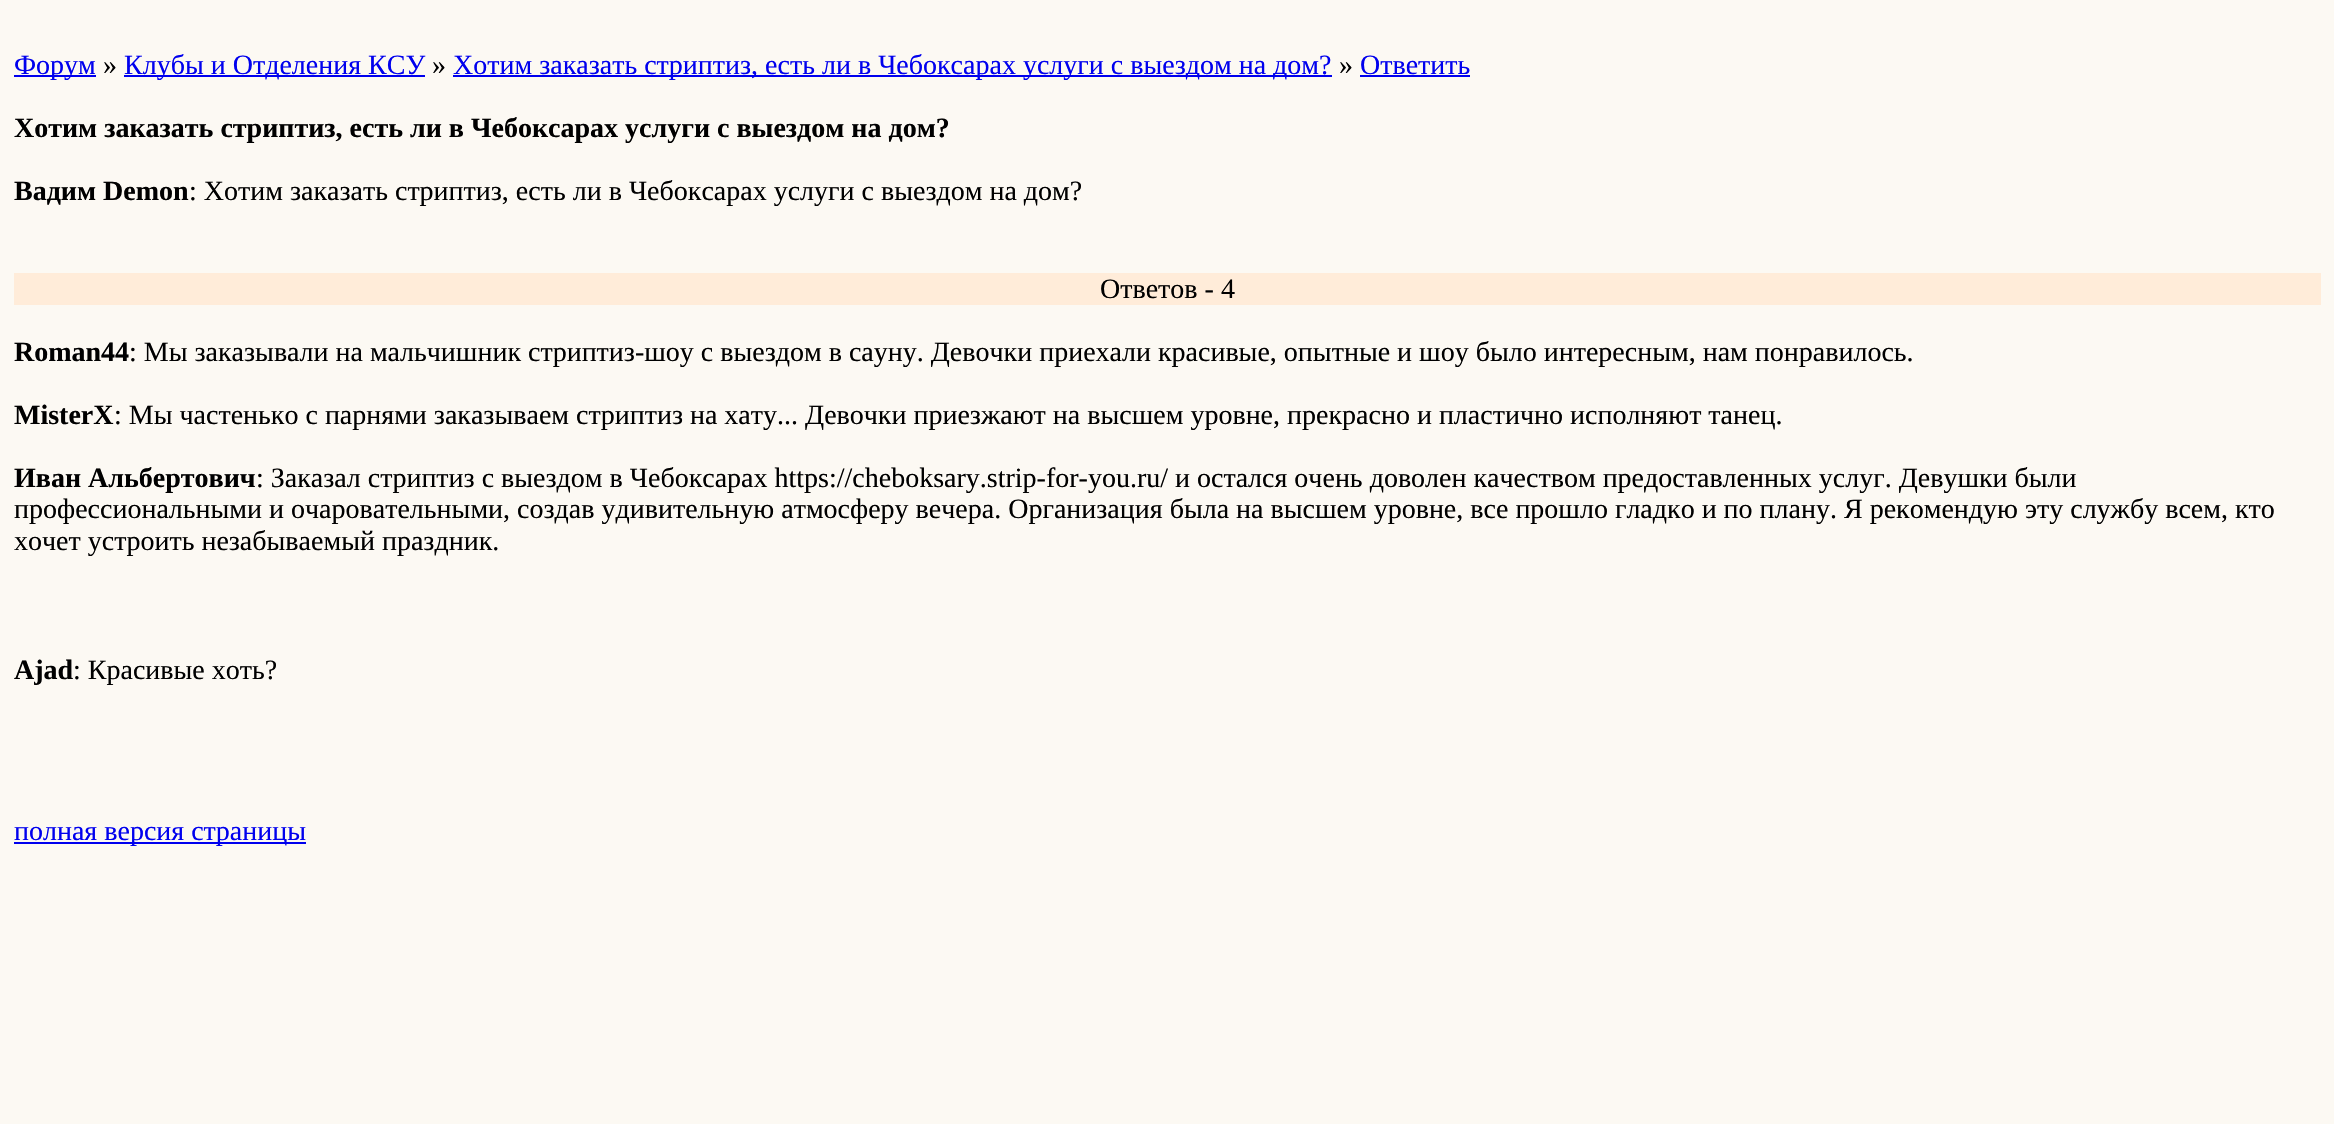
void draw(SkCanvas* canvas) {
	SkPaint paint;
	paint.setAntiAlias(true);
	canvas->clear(0xfffcf9f3);
	paint.setColor(0xff0000ee);
	canvas->drawRect(SkRect::MakeXYWH(14, 75, 82, 2), paint);
	SkFont f1(fontMgr->matchFamilyStyle("Liberation Serif", SkFontStyle::Normal()), 28);
	f1.setSubpixel(true);
	canvas->drawString("Форум", 14, 74, f1, paint);
	paint.setColor(0xff000000);
	canvas->drawString("»", 103, 74, f1, paint);
	paint.setColor(0xff0000ee);
	canvas->drawRect(SkRect::MakeXYWH(124, 75, 301, 2), paint);
	canvas->drawString("Клубы и Отделения КСУ", 124, 74, f1, paint);
	paint.setColor(0xff000000);
	canvas->drawString("»", 432, 74, f1, paint);
	paint.setColor(0xff0000ee);
	canvas->drawRect(SkRect::MakeXYWH(453, 75, 879, 2), paint);
	canvas->drawString("Хотим заказать стриптиз, есть ли в Чебоксарах услуги с выездом на дом?", 453, 74, f1, paint);
	paint.setColor(0xff000000);
	canvas->drawString("»", 1339, 74, f1, paint);
	paint.setColor(0xff0000ee);
	canvas->drawString("Ответить", 1360, 74, f1, paint);
	canvas->drawRect(SkRect::MakeXYWH(1360, 75, 110, 2), paint);
	SkFont f2(fontMgr->matchFamilyStyle("Liberation Serif", SkFontStyle::Bold()), 28);
	f2.setSubpixel(true);
	paint.setColor(0xff000000);
	canvas->drawString("Хотим заказать стриптиз, есть ли в Чебоксарах услуги с выездом на дом?", 14, 137, f2, paint);
	canvas->drawString("Вадим Demon", 14, 200, f2, paint);
	canvas->drawString(": Хотим заказать стриптиз, есть ли в Чебоксарах услуги с выездом на дом?", 189, 200, f1, paint);
	paint.setColor(0xffffecd9);
	canvas->drawRect(SkRect::MakeXYWH(14, 273, 2307, 32), paint);
	paint.setColor(0xff000000);
	canvas->drawString("Ответов - 4", 1100, 298, f1, paint);
	canvas->drawString("Roman44", 14, 361, f2, paint);
	canvas->drawString(": Мы заказывали на мальчишник стриптиз-шоу с выездом в сауну. Девочки приехали красивые, опытные и шоу было интересным, нам понравилось.", 129, 361, f1, paint);
	canvas->drawString("MisterX", 14, 424, f2, paint);
	canvas->drawString(": Мы частенько с парнями заказываем стриптиз на хату... Девочки приезжают на высшем уровне, прекрасно и пластично исполняют танец.", 114, 424, f1, paint);
	canvas->drawString("Иван Альбертович", 14, 487, f2, paint);
	canvas->drawString(": Заказал стриптиз с выездом в Чебоксарах https://cheboksary.strip-for-you.ru/ и остался очень доволен качеством предоставленных услуг. Девушки были", 256, 487, f1, paint);
	canvas->drawString("профессиональными и очаровательными, создав удивительную атмосферу вечера. Организация была на высшем уровне, все прошло гладко и по плану. Я рекомендую эту службу всем, кто", 14, 518, f1, paint);
	canvas->drawString("хочет устроить незабываемый праздник.", 14, 550, f1, paint);
	canvas->drawString("Ajad", 14, 679, f2, paint);
	canvas->drawString(": Красивые хоть?", 73, 679, f1, paint);
	paint.setColor(0xff0000ee);
	canvas->drawRect(SkRect::MakeXYWH(14, 842, 292, 2), paint);
	canvas->drawString("полная версия страницы", 14, 840, f1, paint);
}
